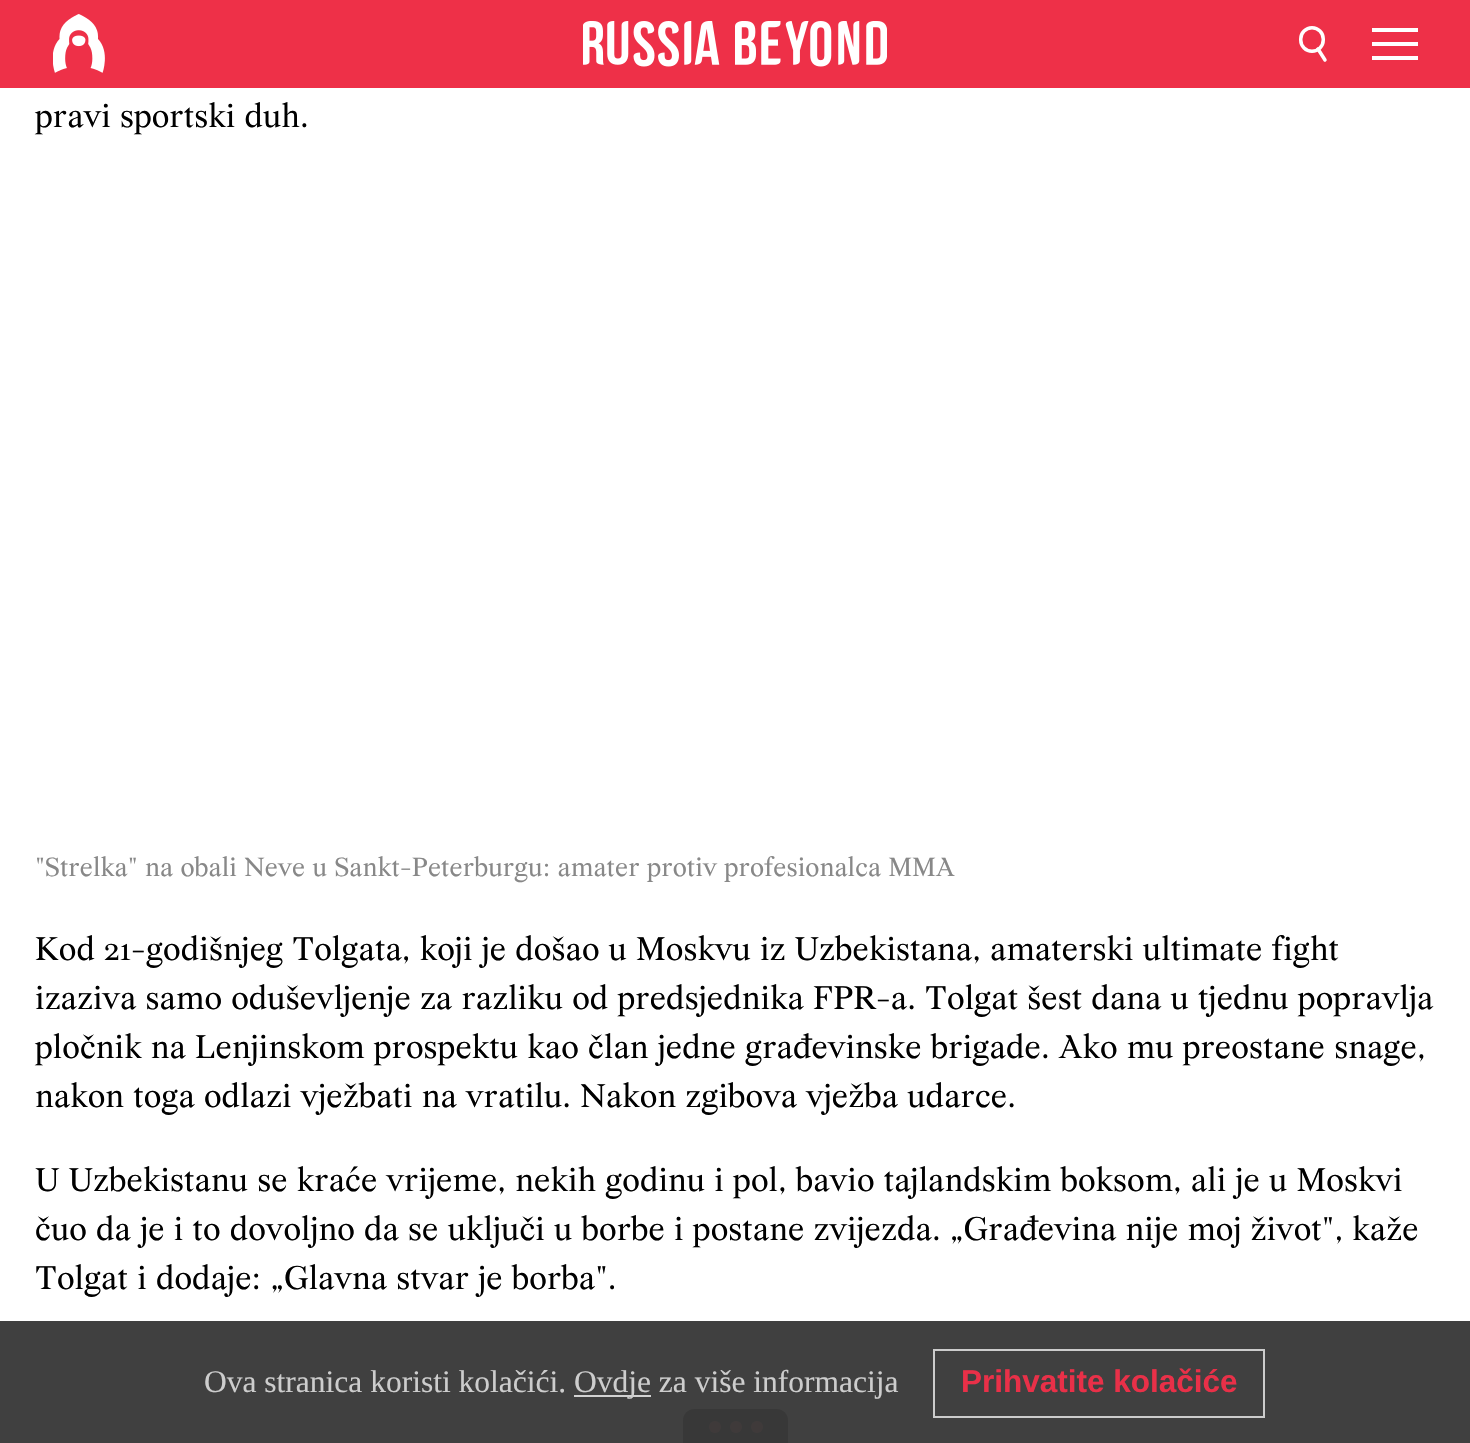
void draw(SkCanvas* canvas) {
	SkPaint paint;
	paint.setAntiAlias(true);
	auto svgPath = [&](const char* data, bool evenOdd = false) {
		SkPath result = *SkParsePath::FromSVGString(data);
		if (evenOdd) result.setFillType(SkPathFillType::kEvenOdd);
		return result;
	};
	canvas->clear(0xffffffff);
	paint.setColor(0xffee3048);
	canvas->drawRect(SkRect::MakeXYWH(0, 0, 1470, 88), paint);
	canvas->drawImageRect(SkImages::DeferredFromEncodedData(SkData::MakeFromFileName("img1.png")), SkRect::MakeXYWH(53, 14, 52, 59), SkSamplingOptions());
	canvas->drawImageRect(SkImages::DeferredFromEncodedData(SkData::MakeFromFileName("img2.png")), SkRect::MakeXYWH(583, 21, 304, 46), SkSamplingOptions());
	paint.setStroke(true);
	paint.setStrokeWidth(3.5);
	paint.setColor(0xffffffff);
	canvas->drawRoundRect(SkRect::MakeXYWH(1300.75, 27.75, 22.5, 23.5), 11.25, 11.25, paint);
	paint.setStrokeCap(SkPaint::kRound_Cap);
	canvas->drawPath(svgPath("M1318 49L1325 60"), paint);
	paint.setStroke(false);
	canvas->drawPath(svgPath("M1372 28H1418V32H1372ZM1372 42H1418V46H1372ZM1372 56H1418V60H1372Z", true), paint);
	paint.setColor(0xff404040);
	canvas->drawRect(SkRect::MakeXYWH(0, 1321, 1470, 122), paint);
	SkFont f1(fontMgr->matchFamilyStyle("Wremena", SkFontStyle::Normal()), 35);
	f1.setSubpixel(true);
	paint.setColor(0xff000000);
	canvas->drawString("pravi sportski duh.", 35, 127, f1, paint);
	SkFont f2(fontMgr->matchFamilyStyle("Wremena", SkFontStyle::Normal()), 28);
	f2.setSubpixel(true);
	paint.setColor(0xff888888);
	canvas->drawString("\"Strelka\" na obali Neve u Sankt-Peterburgu: amater protiv profesionalca MMA", 35, 876, f2, paint);
	paint.setColor(0xff000000);
	canvas->drawString("Kod 21-godišnjeg Tolgata, koji je došao u Moskvu iz Uzbekistana, amaterski ultimate fight", 35, 960, f1, paint);
	canvas->drawString("izaziva samo oduševljenje za razliku od predsjednika FPR-a. Tolgat šest dana u tjednu popravlja", 35, 1009, f1, paint);
	canvas->drawString("pločnik na Lenjinskom prospektu kao član jedne građevinske brigade. Ako mu preostane snage,", 35, 1058, f1, paint);
	canvas->drawString("nakon toga odlazi vježbati na vratilu. Nakon zgibova vježba udarce.", 35, 1107, f1, paint);
	canvas->drawString("U Uzbekistanu se kraće vrijeme, nekih godinu i pol, bavio tajlandskim boksom, ali je u Moskvi", 35, 1191, f1, paint);
	canvas->drawString("čuo da je i to dovoljno da se uključi u borbe i postane zvijezda. „Građevina nije moj život\", kaže", 35, 1240, f1, paint);
	canvas->drawString("Tolgat i dodaje: „Glavna stvar je borba\".", 35, 1289, f1, paint);
	paint.setColor(0xff383838);
	canvas->drawPath(svgPath("M694 1409H777C783 1409 788 1414 788 1420V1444H683V1420C683 1414 688 1409 694 1409Z"), paint);
	paint.setColor(0xff3f3a3a);
	canvas->drawCircle(715, 1427, 6, paint);
	canvas->drawCircle(736, 1427, 6, paint);
	canvas->drawCircle(757, 1427, 6, paint);
	SkFont f3(fontMgr->matchFamilyStyle("Liberation Serif", SkFontStyle::Normal()), 31.5);
	f3.setSubpixel(true);
	paint.setColor(0xffcdcdcd);
	canvas->drawString("Ova stranica koristi kolačići.", 204, 1392, f3, paint);
	paint.setColor(0xffd2d2d2);
	canvas->drawRect(SkRect::MakeXYWH(574, 1395, 77, 2), paint);
	paint.setColor(0xffcdcdcd);
	canvas->drawString("Ovdje za više informacija", 574, 1392, f3, paint);
	paint.setStroke(true);
	paint.setStrokeWidth(2);
	paint.setStrokeCap(SkPaint::kButt_Cap);
	paint.setColor(0xf7d1d1d1);
	canvas->drawRect(SkRect::MakeXYWH(934, 1350, 330, 67), paint);
	SkFont f4(fontMgr->matchFamilyStyle("Liberation Sans", SkFontStyle::Bold()), 31.5);
	f4.setSubpixel(true);
	paint.setStroke(false);
	paint.setColor(0xffe93048);
	canvas->drawString("Prihvatite kolačiće", 961, 1392, f4, paint);
}
